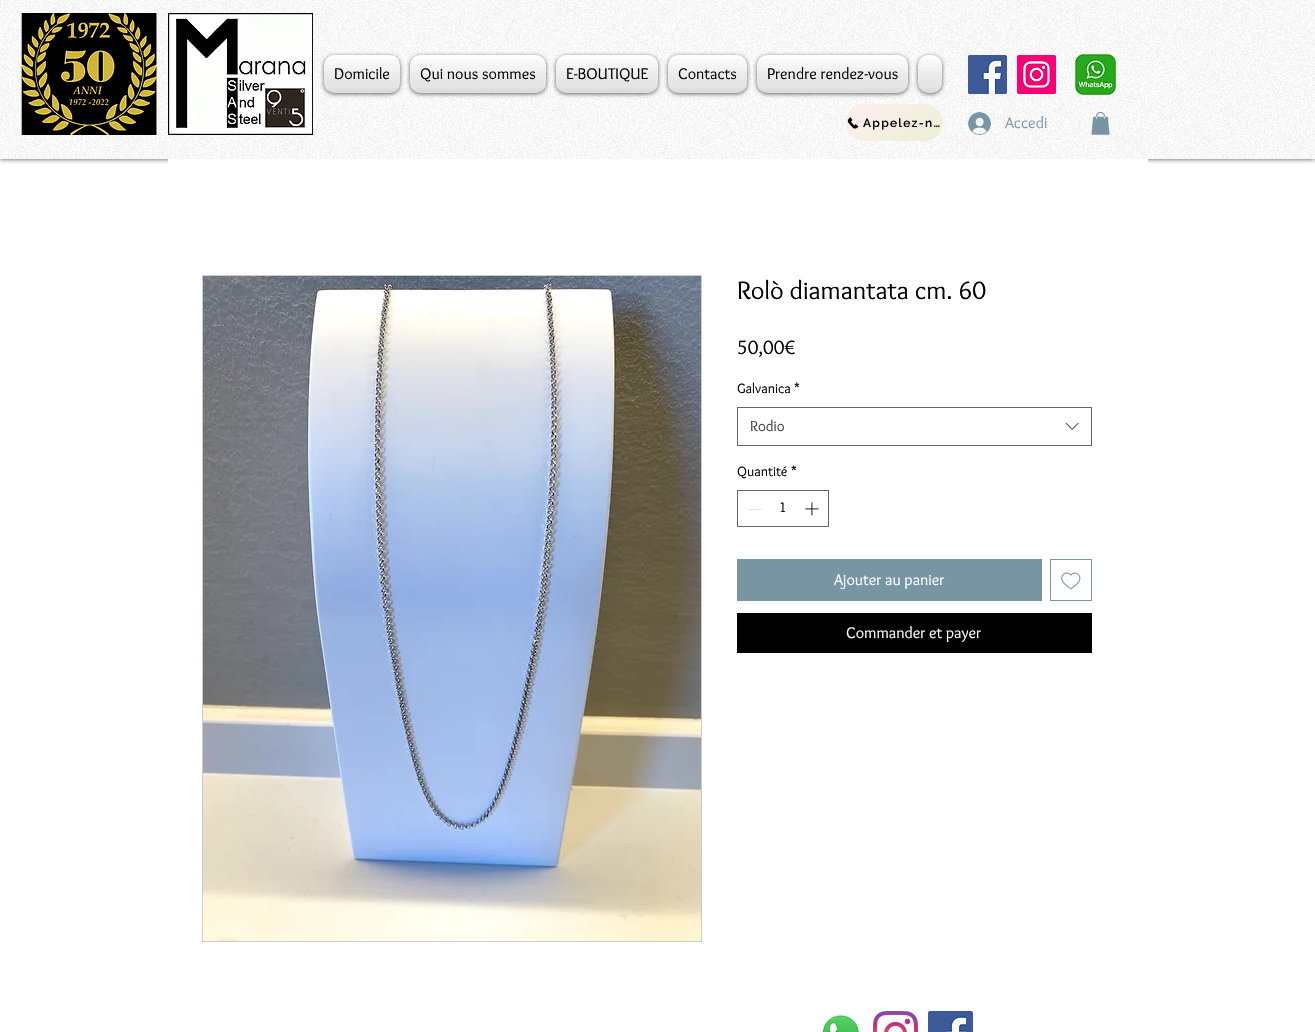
void draw(SkCanvas* canvas) {
	SkPaint paint;
	paint.setAntiAlias(true);
	auto spacedText = [&](const char* s, float x, float y, const SkFont& font, const SkPaint& ink, float letter, float word) {
		std::vector<SkGlyphID> glyphs(font.countText(s, strlen(s), SkTextEncoding::kUTF8));
		std::vector<float> xs(glyphs.size());
		font.textToGlyphs(s, strlen(s), SkTextEncoding::kUTF8, glyphs);
		font.getXPos(glyphs, xs, x);
		float extra = 0;
		for (size_t i = 0; i < glyphs.size(); i++) {
			xs[i] += extra;
			extra += letter + word * (glyphs[i] == font.unicharToGlyph(' '));
		}
		canvas->drawTextBlob(SkTextBlob::MakeFromPosHGlyphs(glyphs, xs, y, font), 0, 0, ink);
	};
	canvas->clear(0xffffffff);
	canvas->save();
	canvas->clipRect(SkRect::MakeXYWH(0, 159, 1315, 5));
	paint.setColor(0xb3000000);
	paint.setMaskFilter(SkMaskFilter::MakeBlur(kNormal_SkBlurStyle, 2.5));
	canvas->drawRect(SkRect::MakeXYWH(0, 0, 1315, 159), paint);
	paint.setMaskFilter(nullptr);
	canvas->restore();
	canvas->drawImageRect(SkImages::DeferredFromEncodedData(SkData::MakeFromFileName("img1.png")), SkRect::MakeXYWH(0, 0, 1315, 159), SkSamplingOptions());
	canvas->drawImageRect(SkImages::DeferredFromEncodedData(SkData::MakeFromFileName("img2.png")), SkRect::MakeXYWH(21, 13, 136, 122), SkSamplingOptions());
	canvas->drawImageRect(SkImages::DeferredFromEncodedData(SkData::MakeFromFileName("img3.png")), SkRect::MakeXYWH(168, 13, 145, 122), SkSamplingOptions());
	paint.setColor(0x99000000);
	paint.setMaskFilter(SkMaskFilter::MakeBlur(kNormal_SkBlurStyle, 2));
	canvas->drawRoundRect(SkRect::MakeXYWH(324, 56, 76, 38), 10, 10, paint);
	paint.setMaskFilter(nullptr);
	paint.setColor(0xffffffff);
	canvas->drawRoundRect(SkRect::MakeXYWH(324, 55, 76, 38), 10, 10, paint);
	paint.setColor(0xffececec);
	canvas->drawRect(SkRect::MakeXYWH(330, 55, 1, 1), paint);
	canvas->drawImageRect(SkImages::DeferredFromEncodedData(SkData::MakeFromFileName("img4.png")), SkRect::MakeXYWH(324, 59, 76, 34), SkSamplingOptions());
	SkFont f1(fontMgr->matchFamilyStyle("Overlock", SkFontStyle::Normal()), 16);
	f1.setSubpixel(true);
	paint.setColor(0xff000000);
	canvas->drawString("Domicile", 334, 79, f1, paint);
	paint.setColor(0x99000000);
	paint.setMaskFilter(SkMaskFilter::MakeBlur(kNormal_SkBlurStyle, 2));
	canvas->drawRoundRect(SkRect::MakeXYWH(410, 56, 136, 38), 10, 10, paint);
	paint.setMaskFilter(nullptr);
	paint.setColor(0xffffffff);
	canvas->drawRoundRect(SkRect::MakeXYWH(410, 55, 136, 38), 10, 10, paint);
	canvas->drawImageRect(SkImages::DeferredFromEncodedData(SkData::MakeFromFileName("img5.png")), SkRect::MakeXYWH(410, 59, 136, 34), SkSamplingOptions());
	paint.setColor(0xff000000);
	canvas->drawString("Qui nous sommes", 420, 79, f1, paint);
	paint.setColor(0x99000000);
	paint.setMaskFilter(SkMaskFilter::MakeBlur(kNormal_SkBlurStyle, 2));
	canvas->drawRoundRect(SkRect::MakeXYWH(556, 56, 102, 38), 10, 10, paint);
	paint.setMaskFilter(nullptr);
	paint.setColor(0xffffffff);
	canvas->drawRoundRect(SkRect::MakeXYWH(556, 55, 102, 38), 10, 10, paint);
	paint.setColor(0xffe8e8e8);
	canvas->drawRect(SkRect::MakeXYWH(651, 55, 1, 1), paint);
	canvas->drawImageRect(SkImages::DeferredFromEncodedData(SkData::MakeFromFileName("img6.png")), SkRect::MakeXYWH(556, 59, 102, 34), SkSamplingOptions());
	paint.setColor(0xff000000);
	canvas->drawString("E-BOUTIQUE", 566, 79, f1, paint);
	paint.setColor(0x99000000);
	paint.setMaskFilter(SkMaskFilter::MakeBlur(kNormal_SkBlurStyle, 2));
	canvas->drawRoundRect(SkRect::MakeXYWH(668, 56, 79, 38), 10, 10, paint);
	paint.setMaskFilter(nullptr);
	paint.setColor(0xffffffff);
	canvas->drawRoundRect(SkRect::MakeXYWH(668, 55, 79, 38), 10, 10, paint);
	canvas->drawImageRect(SkImages::DeferredFromEncodedData(SkData::MakeFromFileName("img7.png")), SkRect::MakeXYWH(668, 59, 79, 34), SkSamplingOptions());
	paint.setColor(0xff000000);
	canvas->drawString("Contacts", 678, 79, f1, paint);
	paint.setColor(0x99000000);
	paint.setMaskFilter(SkMaskFilter::MakeBlur(kNormal_SkBlurStyle, 2));
	canvas->drawRoundRect(SkRect::MakeXYWH(757, 56, 151, 38), 10, 10, paint);
	paint.setMaskFilter(nullptr);
	paint.setColor(0xffffffff);
	canvas->drawRoundRect(SkRect::MakeXYWH(757, 55, 151, 38), 10, 10, paint);
	canvas->drawImageRect(SkImages::DeferredFromEncodedData(SkData::MakeFromFileName("img8.png")), SkRect::MakeXYWH(757, 59, 151, 34), SkSamplingOptions());
	paint.setColor(0xff000000);
	canvas->drawString("Prendre rendez-vous", 767, 79, f1, paint);
	paint.setColor(0x99000000);
	paint.setMaskFilter(SkMaskFilter::MakeBlur(kNormal_SkBlurStyle, 2));
	canvas->drawRoundRect(SkRect::MakeXYWH(918, 56, 24, 38), 10, 10, paint);
	paint.setMaskFilter(nullptr);
	paint.setColor(0xffffffff);
	canvas->drawRoundRect(SkRect::MakeXYWH(918, 55, 24, 38), 10, 10, paint);
	canvas->drawImageRect(SkImages::DeferredFromEncodedData(SkData::MakeFromFileName("img9.png")), SkRect::MakeXYWH(918, 59, 24, 34), SkSamplingOptions());
	canvas->drawImageRect(SkImages::DeferredFromEncodedData(SkData::MakeFromFileName("img10.png")), SkRect::MakeXYWH(968, 55, 39, 39), SkSamplingOptions());
	canvas->drawImageRect(SkImages::DeferredFromEncodedData(SkData::MakeFromFileName("img11.png")), SkRect::MakeXYWH(1017, 55, 39, 39), SkSamplingOptions());
	canvas->drawImageRect(SkImages::DeferredFromEncodedData(SkData::MakeFromFileName("img12.png")), SkRect::MakeXYWH(1074, 53, 43, 43), SkSamplingOptions());
	paint.setColor(0xffebf0d4);
	canvas->drawRoundRect(SkRect::MakeXYWH(846, 104, 97, 37), 18.5, 18.5, paint);
	{
		const SkColor colors[] = {0xffffeeee, 0x00ffeeee};
		const float stops[] = {0, 1};
		const SkPoint ends[] = {{870, 87}, {919, 158}};
		paint.setShader(SkGradientShader::MakeLinear(ends, colors, stops, 2, SkTileMode::kClamp));
		paint.setAlpha(255);
	}
	canvas->drawRoundRect(SkRect::MakeXYWH(846, 104, 97, 37), 18.5, 18.5, paint);
	canvas->drawImageRect(SkImages::DeferredFromEncodedData(SkData::MakeFromFileName("img13.png")), SkRect::MakeXYWH(847, 117, 12, 12), SkSamplingOptions());
	SkFont f2(fontMgr->matchFamilyStyle("Raleway", SkFontStyle(600, SkFontStyle::kNormal_Width, SkFontStyle::kUpright_Slant)), 12);
	f2.setSubpixel(true);
	paint.setShader(nullptr);
	paint.setColor(0xff000000);
	spacedText("Appelez-n…", 863, 127, f2, paint, 1.25, 0);
	canvas->drawImageRect(SkImages::DeferredFromEncodedData(SkData::MakeFromFileName("img14.png")), SkRect::MakeXYWH(968, 112, 23, 23), SkSamplingOptions());
	paint.setColor(0xff7795a3);
	canvas->drawString("Accedi", 1005, 128, f1, paint);
	canvas->drawImageRect(SkImages::DeferredFromEncodedData(SkData::MakeFromFileName("img15.png")), SkRect::MakeXYWH(1091, 112, 19, 23), SkSamplingOptions());
	paint.setColor(0xffffffff);
	canvas->drawRect(SkRect::MakeXYWH(168, 159, 980, 5), paint);
	paint.setStroke(true);
	paint.setStrokeWidth(1);
	paint.setColor(0xffcccccc);
	canvas->drawRect(SkRect::MakeXYWH(202.5, 275.5, 499, 666), paint);
	canvas->drawImageRect(SkImages::DeferredFromEncodedData(SkData::MakeFromFileName("img16.png")), SkRect::MakeXYWH(203, 276, 498, 665), SkSamplingOptions());
	SkFont f3(fontMgr->matchFamilyStyle("Overlock", SkFontStyle::Normal()), 26);
	f3.setSubpixel(true);
	paint.setStroke(false);
	paint.setColor(0xff000000);
	canvas->drawString("Rolò diamantata cm. 60", 737, 299, f3, paint);
	SkFont f4(fontMgr->matchFamilyStyle("Overlock", SkFontStyle::Normal()), 20);
	f4.setSubpixel(true);
	canvas->drawString("50,00€", 737, 354, f4, paint);
	SkFont f5(fontMgr->matchFamilyStyle("Overlock", SkFontStyle::Normal()), 14);
	f5.setSubpixel(true);
	canvas->drawString("Galvanica", 737, 393, f5, paint);
	canvas->drawString("*", 794, 393, f5, paint);
	paint.setStroke(true);
	paint.setColor(0xff666666);
	canvas->drawRect(SkRect::MakeXYWH(737.5, 407.5, 354, 38), paint);
	SkFont f6(fontMgr->matchFamilyStyle("Overlock", SkFontStyle::Normal()), 15);
	f6.setSubpixel(true);
	paint.setStroke(false);
	paint.setColor(0xff444444);
	canvas->drawString("Rodio", 750, 431, f6, paint);
	canvas->drawImageRect(SkImages::DeferredFromEncodedData(SkData::MakeFromFileName("img17.png")), SkRect::MakeXYWH(1065, 422, 14, 8), SkSamplingOptions());
	paint.setColor(0xff000000);
	canvas->drawString("Quantité", 737, 476, f5, paint);
	canvas->drawString("*", 791, 476, f5, paint);
	paint.setStroke(true);
	paint.setColor(0xff666666);
	canvas->drawRect(SkRect::MakeXYWH(737.5, 490.5, 91, 36), paint);
	paint.setStroke(false);
	paint.setColor(0xffe3e3e3);
	canvas->drawRect(SkRect::MakeXYWH(749, 509, 13, 1), paint);
	paint.setColor(0xff000000);
	canvas->drawString("1", 779, 512, f5, paint);
	canvas->drawImageRect(SkImages::DeferredFromEncodedData(SkData::MakeFromFileName("img18.png")), SkRect::MakeXYWH(805, 502, 14, 14), SkSamplingOptions());
	paint.setColor(0xff7795a3);
	canvas->drawRect(SkRect::MakeXYWH(737, 559, 305, 42), paint);
	paint.setColor(0xffffffff);
	canvas->drawString("Ajouter au panier", 834, 585, f1, paint);
	paint.setStroke(true);
	paint.setColor(0xff7795a3);
	canvas->drawRect(SkRect::MakeXYWH(1050.5, 559.5, 41, 41), paint);
	canvas->drawImageRect(SkImages::DeferredFromEncodedData(SkData::MakeFromFileName("img19.png")), SkRect::MakeXYWH(1061, 572, 20, 17), SkSamplingOptions());
	paint.setStroke(false);
	paint.setColor(0xff000000);
	canvas->drawRect(SkRect::MakeXYWH(737, 613, 355, 40), paint);
	paint.setColor(0xffffffff);
	canvas->drawString("Commander et payer", 846, 638, f1, paint);
	canvas->drawImageRect(SkImages::DeferredFromEncodedData(SkData::MakeFromFileName("img20.png")), SkRect::MakeXYWH(819, 1011, 44, 21), SkSamplingOptions());
	canvas->drawImageRect(SkImages::DeferredFromEncodedData(SkData::MakeFromFileName("img21.png")), SkRect::MakeXYWH(873, 1011, 45, 21), SkSamplingOptions());
	canvas->drawImageRect(SkImages::DeferredFromEncodedData(SkData::MakeFromFileName("img22.png")), SkRect::MakeXYWH(928, 1011, 45, 21), SkSamplingOptions());
}
